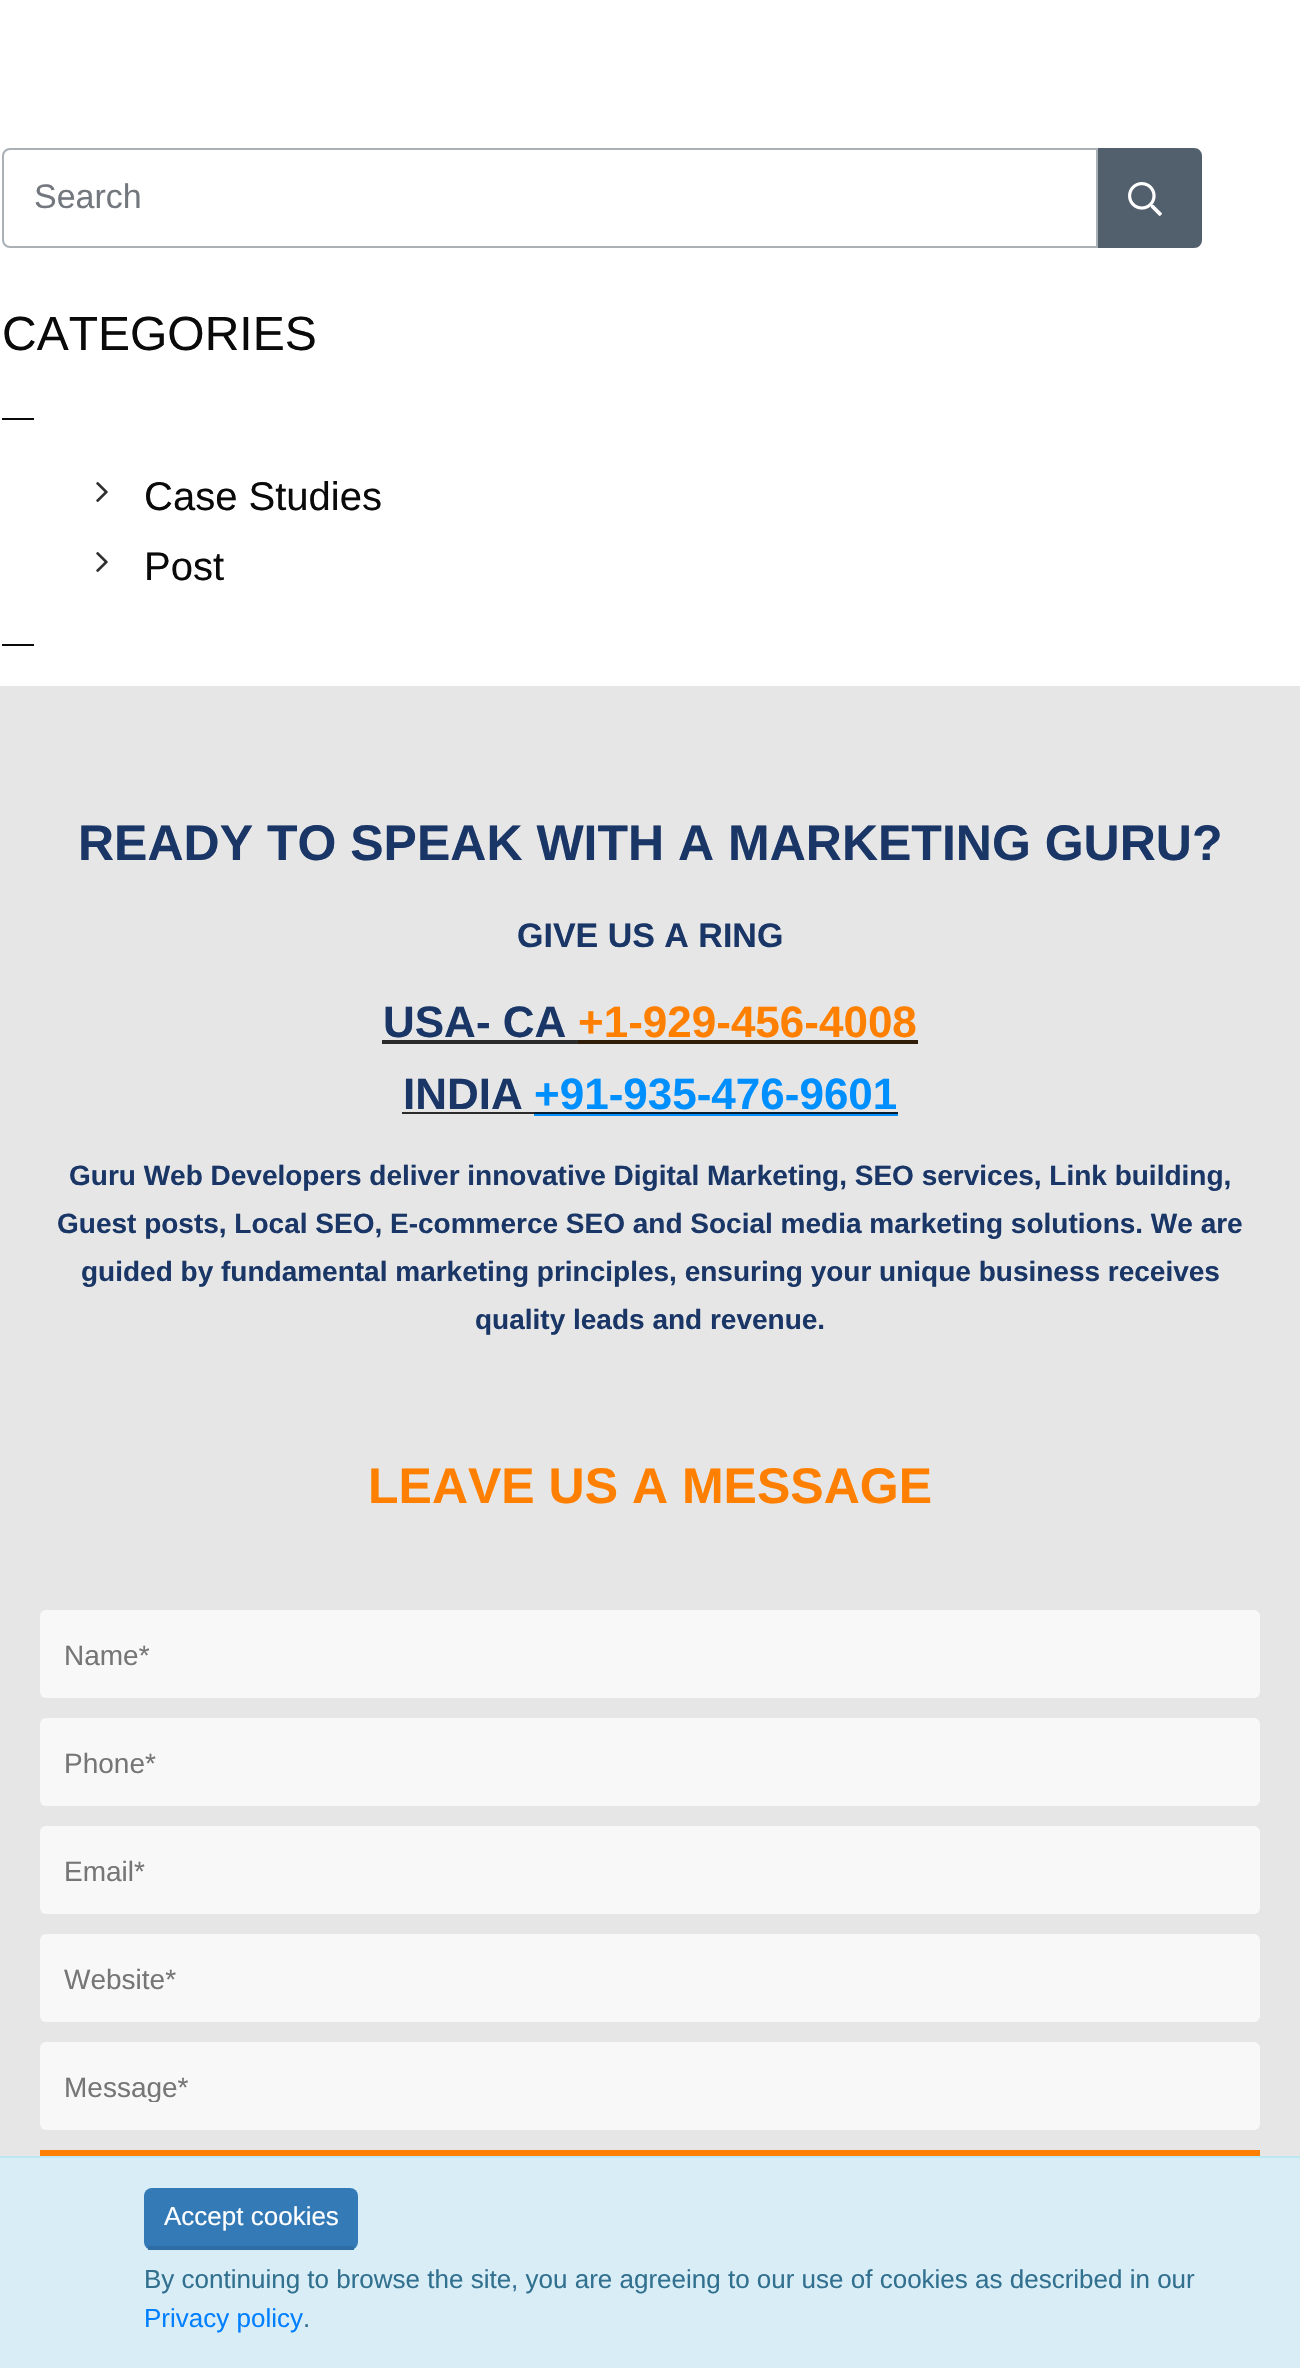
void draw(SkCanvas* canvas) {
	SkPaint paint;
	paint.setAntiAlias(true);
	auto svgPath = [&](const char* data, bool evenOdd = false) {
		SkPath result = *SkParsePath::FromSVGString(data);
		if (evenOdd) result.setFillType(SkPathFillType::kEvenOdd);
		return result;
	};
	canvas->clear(0xffffffff);
	paint.setStroke(true);
	paint.setStrokeWidth(2);
	paint.setColor(0xffa9b0b6);
	canvas->drawPath(svgPath("M10 149H1097V247H10C6 247 3 244 3 240V156C3 152 6 149 10 149Z"), paint);
	SkFont f1(fontMgr->matchFamilyStyle("Liberation Sans", SkFontStyle::Normal()), 34);
	f1.setSubpixel(true);
	paint.setStroke(false);
	paint.setColor(0xff73787f);
	canvas->drawString("Search", 34, 208, f1, paint);
	paint.setColor(0xff52606d);
	canvas->drawPath(svgPath("M1098 148H1194C1198.5 148 1202 151.5 1202 156V240C1202 244.5 1198.5 248 1194 248H1098Z"), paint);
	canvas->drawImageRect(SkImages::DeferredFromEncodedData(SkData::MakeFromFileName("img1.png")), SkRect::MakeXYWH(1128, 182, 34, 34), SkSamplingOptions());
	SkFont f2(fontMgr->matchFamilyStyle("Liberation Sans", SkFontStyle::Normal()), 48);
	f2.setSubpixel(true);
	paint.setColor(0xff0a0a0a);
	canvas->drawString("CATEGORIES", 2, 350, f2, paint);
	canvas->drawRect(SkRect::MakeXYWH(2, 418, 32, 2), paint);
	canvas->drawImageRect(SkImages::DeferredFromEncodedData(SkData::MakeFromFileName("img2.png")), SkRect::MakeXYWH(96, 482, 12, 20), SkSamplingOptions());
	SkFont f3(fontMgr->matchFamilyStyle("Liberation Sans", SkFontStyle::Normal()), 40);
	f3.setSubpixel(true);
	canvas->drawString("Case Studies", 144, 510, f3, paint);
	canvas->drawImageRect(SkImages::DeferredFromEncodedData(SkData::MakeFromFileName("img2.png")), SkRect::MakeXYWH(96, 552, 12, 20), SkSamplingOptions());
	canvas->drawString("Post", 144, 580, f3, paint);
	canvas->drawRect(SkRect::MakeXYWH(2, 644, 32, 2), paint);
	paint.setColor(0xffe6e6e6);
	canvas->drawRect(SkRect::MakeXYWH(0, 686, 1300, 1470), paint);
	SkFont f4(fontMgr->matchFamilyStyle("Liberation Sans", SkFontStyle::Bold()), 50);
	f4.setSubpixel(true);
	paint.setColor(0xff193666);
	canvas->drawString("READY TO SPEAK WITH A MARKETING GURU?", 78, 860, f4, paint);
	SkFont f5(fontMgr->matchFamilyStyle("Liberation Sans", SkFontStyle::Bold()), 34);
	f5.setSubpixel(true);
	canvas->drawString("GIVE US A RING", 517, 947, f5, paint);
	SkFont f6(fontMgr->matchFamilyStyle("Liberation Sans", SkFontStyle::Bold()), 44);
	f6.setSubpixel(true);
	canvas->drawString("USA- CA", 383, 1037, f6, paint);
	paint.setColor(0xff2b2b2b);
	canvas->drawRect(SkRect::MakeXYWH(382, 1040, 196, 4), paint);
	paint.setColor(0xffff8000);
	canvas->drawString("+1-929-456-4008", 578, 1037, f6, paint);
	paint.setColor(0xff2f1c09);
	canvas->drawRect(SkRect::MakeXYWH(578, 1040, 340, 4), paint);
	paint.setColor(0xff193666);
	canvas->drawString("INDIA", 403, 1109, f6, paint);
	paint.setColor(0xff2b2b2b);
	canvas->drawRect(SkRect::MakeXYWH(402, 1112, 132, 2), paint);
	paint.setColor(0xff008fff);
	canvas->drawString("+91-935-476-9601", 534, 1109, f6, paint);
	canvas->drawRect(SkRect::MakeXYWH(534, 1114, 364, 2), paint);
	paint.setColor(0xff091e2f);
	canvas->drawRect(SkRect::MakeXYWH(534, 1112, 364, 2), paint);
	SkFont f7(fontMgr->matchFamilyStyle("Liberation Sans", SkFontStyle::Bold()), 28);
	f7.setSubpixel(true);
	paint.setColor(0xff193666);
	canvas->drawString("Guru Web Developers deliver innovative Digital Marketing, SEO services, Link building,", 69, 1185, f7, paint);
	canvas->drawString("Guest posts, Local SEO, E-commerce SEO and Social media marketing solutions. We are", 57, 1233, f7, paint);
	canvas->drawString("guided by fundamental marketing principles, ensuring your unique business receives", 81, 1281, f7, paint);
	canvas->drawString("quality leads and revenue.", 475, 1329, f7, paint);
	paint.setColor(0xffff8000);
	canvas->drawString("LEAVE US A MESSAGE", 368, 1503, f4, paint);
	paint.setColor(0xfff8f8f8);
	canvas->drawRoundRect(SkRect::MakeXYWH(40, 1610, 1220, 88), 6, 6, paint);
	SkFont f8(fontMgr->matchFamilyStyle("Liberation Sans", SkFontStyle::Normal()), 28);
	f8.setSubpixel(true);
	paint.setColor(0xff767676);
	canvas->drawString("Name*", 64, 1665, f8, paint);
	paint.setColor(0xfff8f8f8);
	canvas->drawRoundRect(SkRect::MakeXYWH(40, 1718, 1220, 88), 6, 6, paint);
	paint.setColor(0xff767676);
	canvas->drawString("Phone*", 64, 1773, f8, paint);
	paint.setColor(0xfff8f8f8);
	canvas->drawRoundRect(SkRect::MakeXYWH(40, 1826, 1220, 88), 6, 6, paint);
	paint.setColor(0xff767676);
	canvas->drawString("Email*", 64, 1881, f8, paint);
	paint.setColor(0xfff8f8f8);
	canvas->drawRoundRect(SkRect::MakeXYWH(40, 1934, 1220, 88), 6, 6, paint);
	paint.setColor(0xff767676);
	canvas->drawString("Website*", 64, 1989, f8, paint);
	paint.setColor(0xfff8f8f8);
	canvas->drawRoundRect(SkRect::MakeXYWH(40, 2042, 1220, 88), 6, 6, paint);
	canvas->save();
	canvas->clipRect(SkRect::MakeXYWH(64, 2070, 1172, 32));
	paint.setColor(0xff767676);
	canvas->drawString("Message*", 64, 2097, f8, paint);
	canvas->restore();
	paint.setColor(0xffff8000);
	canvas->drawRect(SkRect::MakeXYWH(40, 2150, 1220, 6), paint);
	paint.setColor(0xffd9edf7);
	canvas->drawRect(SkRect::MakeXYWH(0, 2158, 1300, 210), paint);
	paint.setColor(0xffbce8f1);
	canvas->drawRect(SkRect::MakeXYWH(0, 2156, 1300, 2), paint);
	paint.setColor(0xff337ab7);
	canvas->drawRoundRect(SkRect::MakeXYWH(144, 2188, 214, 62), 8, 8, paint);
	paint.setColor(0xff2e6da4);
	canvas->drawRect(SkRect::MakeXYWH(148, 2246, 206, 4), paint);
	SkFont f9(fontMgr->matchFamilyStyle("Liberation Sans", SkFontStyle::Normal()), 26);
	f9.setSubpixel(true);
	paint.setColor(0xffffffff);
	canvas->drawString("Accept cookies", 164, 2225, f9, paint);
	paint.setColor(0xff31708f);
	canvas->drawString("By continuing to browse the site, you are agreeing to our use of cookies as described in our", 144, 2288, f9, paint);
	paint.setColor(0xff007fff);
	canvas->drawString("Privacy policy", 144, 2327, f9, paint);
	paint.setColor(0xff31708f);
	canvas->drawString(".", 303, 2327, f9, paint);
}
